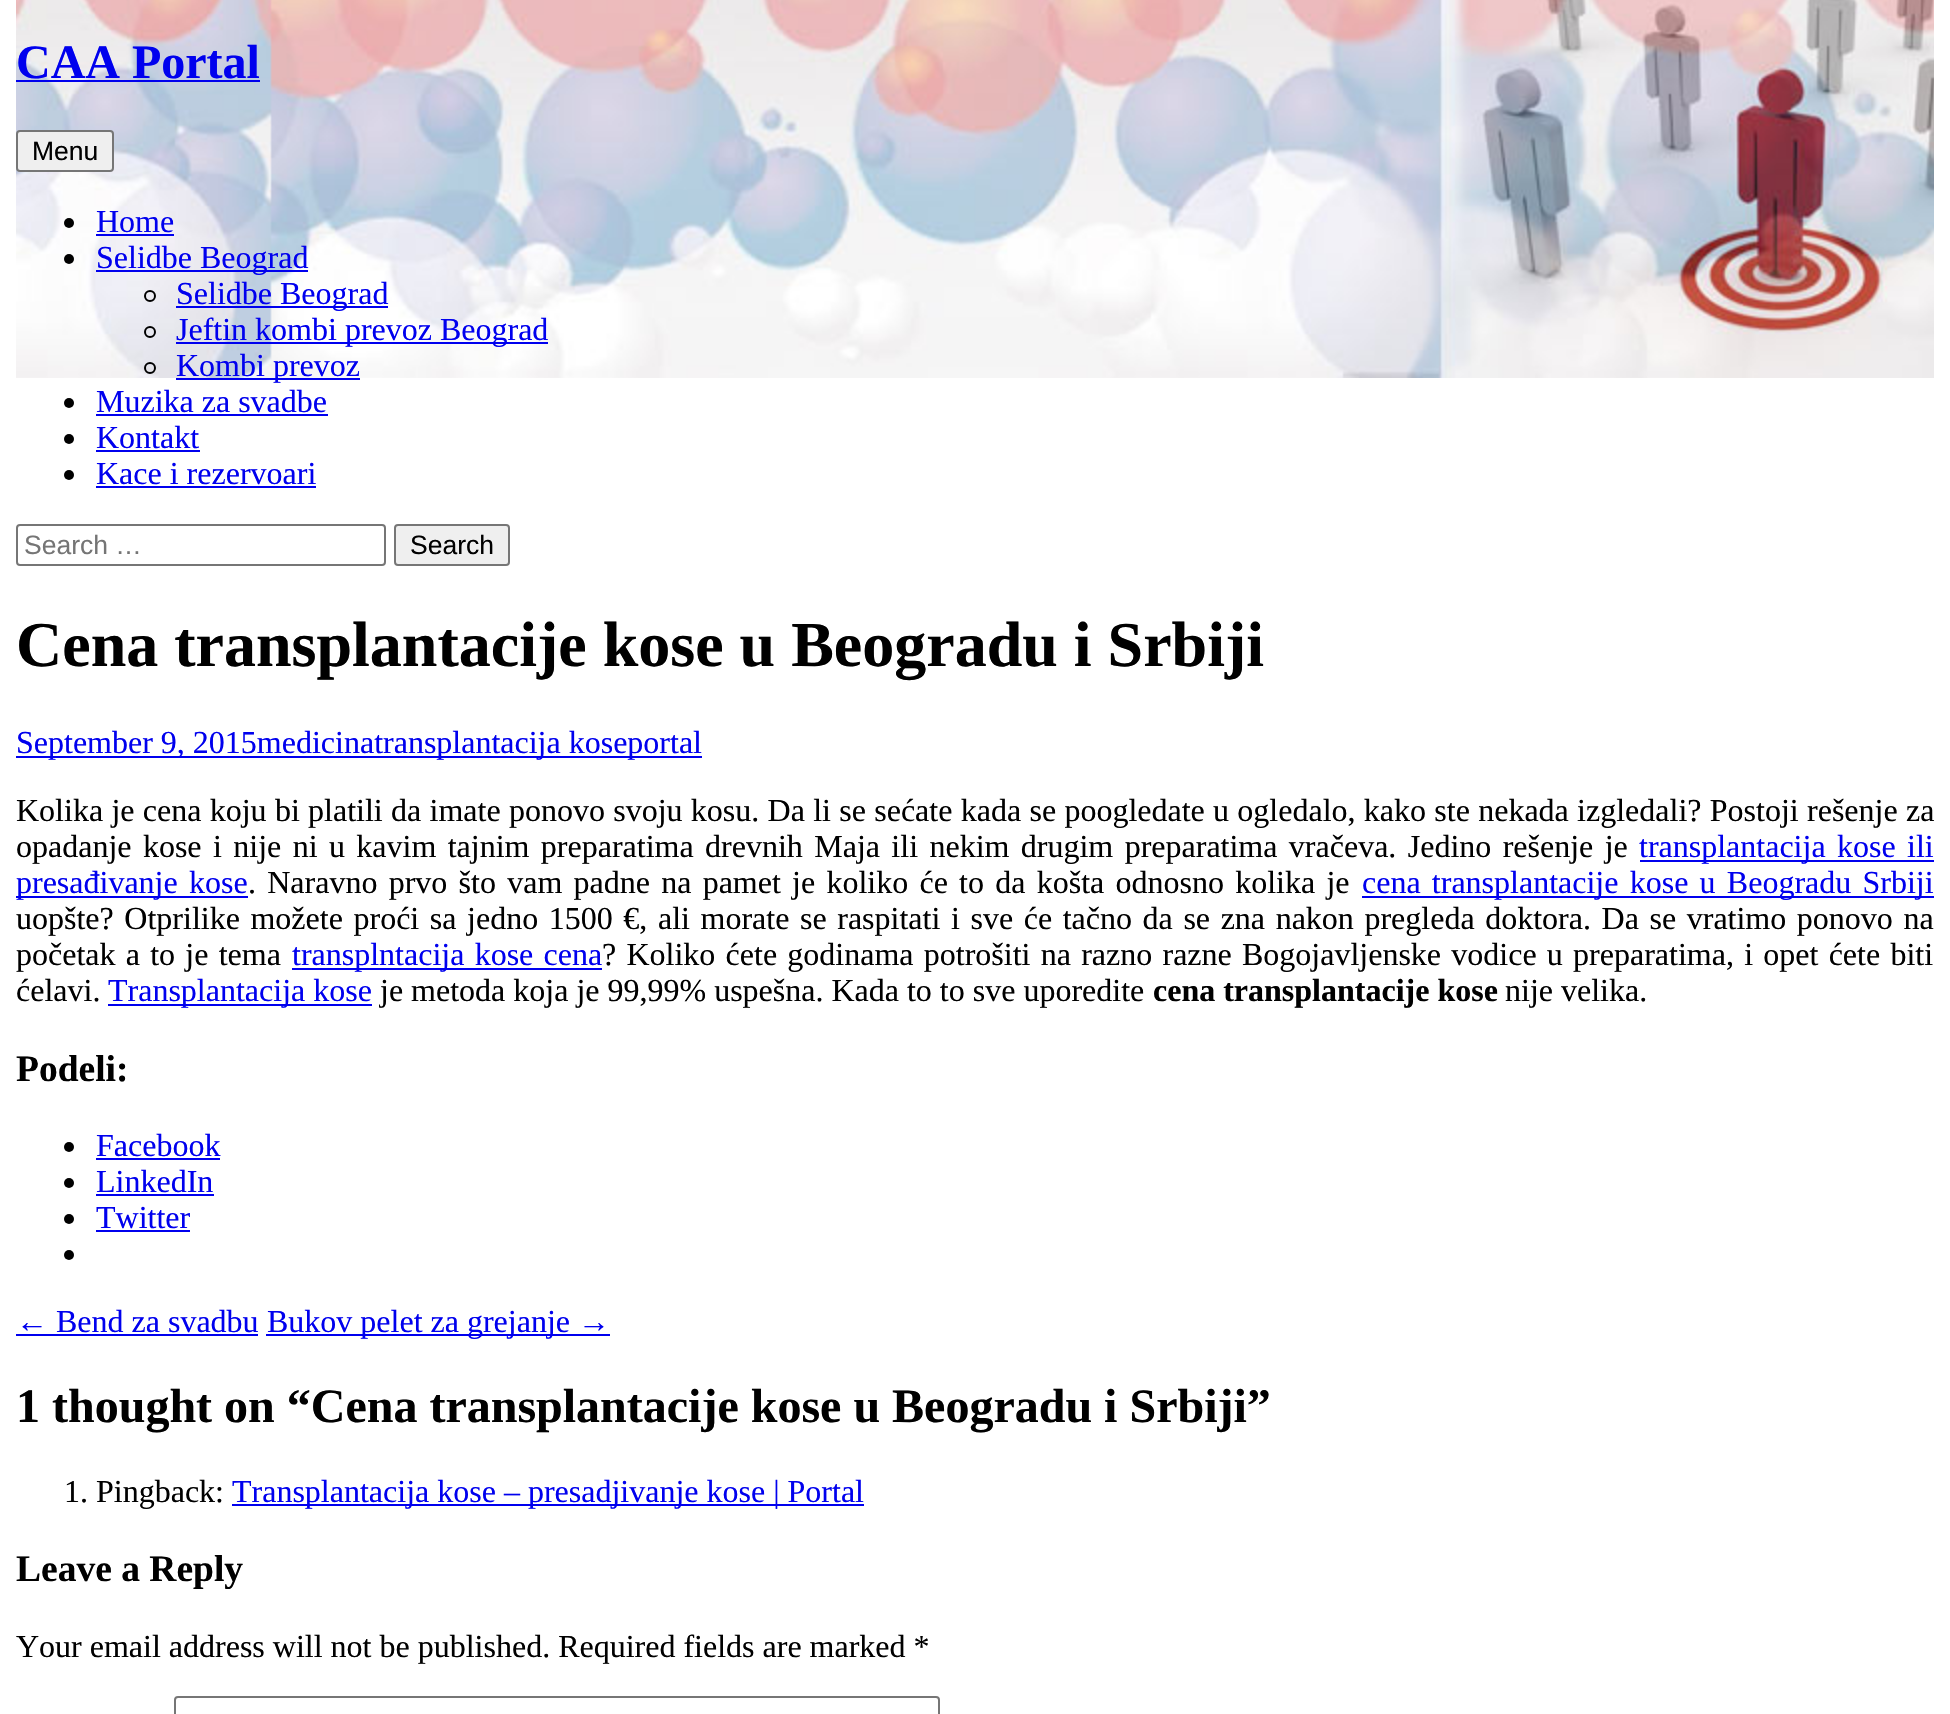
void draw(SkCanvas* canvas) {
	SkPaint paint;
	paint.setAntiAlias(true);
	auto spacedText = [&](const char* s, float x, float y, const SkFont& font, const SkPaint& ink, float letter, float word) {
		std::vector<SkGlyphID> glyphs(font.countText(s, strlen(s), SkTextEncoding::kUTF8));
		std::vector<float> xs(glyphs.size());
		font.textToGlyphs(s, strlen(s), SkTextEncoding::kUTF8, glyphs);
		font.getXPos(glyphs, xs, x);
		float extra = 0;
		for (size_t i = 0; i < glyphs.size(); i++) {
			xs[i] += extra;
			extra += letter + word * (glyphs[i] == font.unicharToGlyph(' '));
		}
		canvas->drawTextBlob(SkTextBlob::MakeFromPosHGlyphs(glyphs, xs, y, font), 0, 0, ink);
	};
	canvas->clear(0xffffffff);
	canvas->drawImageRect(SkImages::DeferredFromEncodedData(SkData::MakeFromFileName("img1.png")), SkRect::MakeXYWH(16, 0, 1918, 378), SkSamplingOptions());
	SkFont f1(fontMgr->matchFamilyStyle("Liberation Serif", SkFontStyle::Bold()), 48);
	f1.setSubpixel(true);
	paint.setColor(0xff0000ee);
	canvas->drawString("CAA Portal", 16, 78, f1, paint);
	canvas->drawRect(SkRect::MakeXYWH(16, 80, 244, 2), paint);
	paint.setColor(0xffefefef);
	canvas->drawRoundRect(SkRect::MakeXYWH(17, 131, 96, 40), 3, 3, paint);
	paint.setStroke(true);
	paint.setStrokeWidth(2);
	paint.setColor(0xff767676);
	canvas->drawRoundRect(SkRect::MakeXYWH(17, 131, 96, 40), 3, 3, paint);
	SkFont f2(fontMgr->matchFamilyStyle("Liberation Sans", SkFontStyle::Normal()), 26.5);
	f2.setSubpixel(true);
	paint.setStroke(false);
	paint.setColor(0xff000000);
	canvas->drawString("Menu", 32, 160, f2, paint);
	canvas->drawCircle(69, 223, 5, paint);
	SkFont f3(fontMgr->matchFamilyStyle("Liberation Serif", SkFontStyle::Normal()), 32);
	f3.setSubpixel(true);
	paint.setColor(0xff0000ee);
	canvas->drawString("Home", 96, 232, f3, paint);
	canvas->drawRect(SkRect::MakeXYWH(96, 234, 78, 2), paint);
	paint.setColor(0xff000000);
	canvas->drawCircle(69, 259, 5, paint);
	paint.setColor(0xff0000ee);
	canvas->drawRect(SkRect::MakeXYWH(96, 270, 212, 2), paint);
	canvas->drawString("Selidbe Beograd", 96, 268, f3, paint);
	paint.setStroke(true);
	paint.setColor(0xff000000);
	canvas->drawCircle(150, 296, 5, paint);
	paint.setStroke(false);
	paint.setColor(0xff0000ee);
	canvas->drawRect(SkRect::MakeXYWH(176, 306, 212, 2), paint);
	canvas->drawString("Selidbe Beograd", 176, 304, f3, paint);
	paint.setStroke(true);
	paint.setColor(0xff000000);
	canvas->drawCircle(150, 332, 5, paint);
	paint.setStroke(false);
	paint.setColor(0xff0000ee);
	canvas->drawRect(SkRect::MakeXYWH(176, 342, 372, 2), paint);
	canvas->drawString("Jeftin kombi prevoz Beograd", 176, 340, f3, paint);
	paint.setStroke(true);
	paint.setColor(0xff000000);
	canvas->drawCircle(150, 368, 5, paint);
	paint.setStroke(false);
	paint.setColor(0xff0000ee);
	canvas->drawRect(SkRect::MakeXYWH(176, 378, 184, 2), paint);
	canvas->drawString("Kombi prevoz", 176, 376, f3, paint);
	paint.setColor(0xff000000);
	canvas->drawCircle(69, 403, 5, paint);
	paint.setColor(0xff0000ee);
	canvas->drawString("Muzika za svadbe", 96, 412, f3, paint);
	canvas->drawRect(SkRect::MakeXYWH(96, 414, 232, 2), paint);
	paint.setColor(0xff000000);
	canvas->drawCircle(69, 439, 5, paint);
	paint.setColor(0xff0000ee);
	canvas->drawString("Kontakt", 96, 448, f3, paint);
	canvas->drawRect(SkRect::MakeXYWH(96, 450, 104, 2), paint);
	paint.setColor(0xff000000);
	canvas->drawCircle(69, 475, 5, paint);
	paint.setColor(0xff0000ee);
	canvas->drawString("Kace i rezervoari", 96, 484, f3, paint);
	canvas->drawRect(SkRect::MakeXYWH(96, 486, 220, 2), paint);
	paint.setStroke(true);
	paint.setColor(0xff767676);
	canvas->drawRoundRect(SkRect::MakeXYWH(17, 525, 368, 40), 3, 3, paint);
	paint.setStroke(false);
	paint.setColor(0xff757575);
	canvas->drawString("Search …", 24, 554, f2, paint);
	paint.setColor(0xffefefef);
	canvas->drawRoundRect(SkRect::MakeXYWH(395, 525, 114, 40), 3, 3, paint);
	paint.setStroke(true);
	paint.setColor(0xff767676);
	canvas->drawRoundRect(SkRect::MakeXYWH(395, 525, 114, 40), 3, 3, paint);
	paint.setStroke(false);
	paint.setColor(0xff000000);
	canvas->drawString("Search", 410, 554, f2, paint);
	SkFont f4(fontMgr->matchFamilyStyle("Liberation Serif", SkFontStyle::Bold()), 64);
	f4.setSubpixel(true);
	canvas->drawString("Cena transplantacije kose u Beogradu i Srbiji", 16, 666, f4, paint);
	paint.setColor(0xff0000ee);
	canvas->drawRect(SkRect::MakeXYWH(16, 756, 686, 2), paint);
	canvas->drawString("September 9, 2015medicinatransplantacija koseportal", 16, 753, f3, paint);
	paint.setColor(0xff000000);
	spacedText("Kolika je cena koju bi platili da imate ponovo svoju kosu. Da li se sećate kada se poogledate u ogledalo, kako ste nekada izgledali? Postoji rešenje za", 16, 821, f3, paint, 0, 0.3);
	spacedText("opadanje kose i nije ni u kavim tajnim preparatima drevnih Maja ili nekim drugim preparatima vračeva. Jedino rešenje je", 16, 857, f3, paint, 0, 3.4);
	paint.setColor(0xff0000ee);
	canvas->drawRect(SkRect::MakeXYWH(1640, 860, 294, 2), paint);
	spacedText("transplantacija kose ili", 1639, 857, f3, paint, 0, 3.4);
	canvas->drawRect(SkRect::MakeXYWH(16, 896, 232, 2), paint);
	spacedText("presađivanje kose", 16, 893, f3, paint, 0, 3.4);
	paint.setColor(0xff000000);
	spacedText(". Naravno prvo što vam padne na pamet je koliko će to da košta odnosno kolika je", 248, 893, f3, paint, 0, 3.25);
	paint.setColor(0xff0000ee);
	canvas->drawRect(SkRect::MakeXYWH(1362, 896, 572, 2), paint);
	spacedText("cena transplantacije kose u Beogradu Srbiji", 1362, 893, f3, paint, 0, 3.25);
	paint.setColor(0xff000000);
	spacedText("uopšte? Otprilike možete proći sa jedno 1500 €, ali morate se raspitati i sve će tačno da se zna nakon pregleda doktora. Da se vratimo ponovo na", 16, 929, f3, paint, 0, 2.6);
	spacedText("početak a to je tema", 16, 965, f3, paint, 0, 2.25);
	paint.setColor(0xff0000ee);
	canvas->drawRect(SkRect::MakeXYWH(292, 968, 310, 2), paint);
	spacedText("transplntacija kose cena", 292, 965, f3, paint, 0, 2.25);
	paint.setColor(0xff000000);
	spacedText("? Koliko ćete godinama potrošiti na razno razne Bogojavljenske vodice u preparatima, i opet ćete biti", 602, 965, f3, paint, 0, 2.25);
	canvas->drawString("ćelavi.", 16, 1001, f3, paint);
	paint.setColor(0xff0000ee);
	canvas->drawRect(SkRect::MakeXYWH(108, 1004, 264, 2), paint);
	canvas->drawString("Transplantacija kose", 108, 1001, f3, paint);
	paint.setColor(0xff000000);
	canvas->drawString("je metoda koja je 99,99% uspešna. Kada to to sve uporedite", 380, 1001, f3, paint);
	SkFont f5(fontMgr->matchFamilyStyle("Liberation Serif", SkFontStyle::Bold()), 32);
	f5.setSubpixel(true);
	canvas->drawString("cena transplantacije kose", 1153, 1001, f5, paint);
	canvas->drawString("nije velika.", 1505, 1001, f3, paint);
	SkFont f6(fontMgr->matchFamilyStyle("Liberation Serif", SkFontStyle::Bold()), 37.5);
	f6.setSubpixel(true);
	canvas->drawString("Podeli:", 16, 1081, f6, paint);
	canvas->drawCircle(69, 1147, 5, paint);
	paint.setColor(0xff0000ee);
	canvas->drawString("Facebook", 96, 1156, f3, paint);
	canvas->drawRect(SkRect::MakeXYWH(96, 1158, 124, 2), paint);
	paint.setColor(0xff000000);
	canvas->drawCircle(69, 1183, 5, paint);
	paint.setColor(0xff0000ee);
	canvas->drawString("LinkedIn", 96, 1192, f3, paint);
	canvas->drawRect(SkRect::MakeXYWH(96, 1194, 118, 2), paint);
	paint.setColor(0xff000000);
	canvas->drawCircle(69, 1219, 5, paint);
	paint.setColor(0xff0000ee);
	canvas->drawString("Twitter", 96, 1228, f3, paint);
	canvas->drawRect(SkRect::MakeXYWH(96, 1230, 94, 2), paint);
	paint.setColor(0xff000000);
	canvas->drawCircle(69, 1255, 5, paint);
	paint.setColor(0xff0000ee);
	canvas->drawString("← Bend za svadbu", 16, 1332, f3, paint);
	canvas->drawRect(SkRect::MakeXYWH(16, 1334, 242, 2), paint);
	canvas->drawRect(SkRect::MakeXYWH(266, 1334, 344, 2), paint);
	canvas->drawString("Bukov pelet za grejanje →", 267, 1332, f3, paint);
	paint.setColor(0xff000000);
	canvas->drawString("1 thought on “Cena transplantacije kose u Beogradu i Srbiji”", 16, 1422, f1, paint);
	canvas->drawString("1. Pingback:", 64, 1502, f3, paint);
	paint.setColor(0xff0000ee);
	canvas->drawRect(SkRect::MakeXYWH(232, 1504, 632, 2), paint);
	canvas->drawString("Transplantacija kose – presadjivanje kose | Portal", 232, 1502, f3, paint);
	paint.setColor(0xff000000);
	canvas->drawString("Leave a Reply", 16, 1581, f6, paint);
	canvas->drawString("Your email address will not be published. Required fields are marked *", 16, 1657, f3, paint);
	paint.setStroke(true);
	paint.setColor(0xff767676);
	canvas->drawRoundRect(SkRect::MakeXYWH(175, 1697, 764, 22), 3, 3, paint);
}
